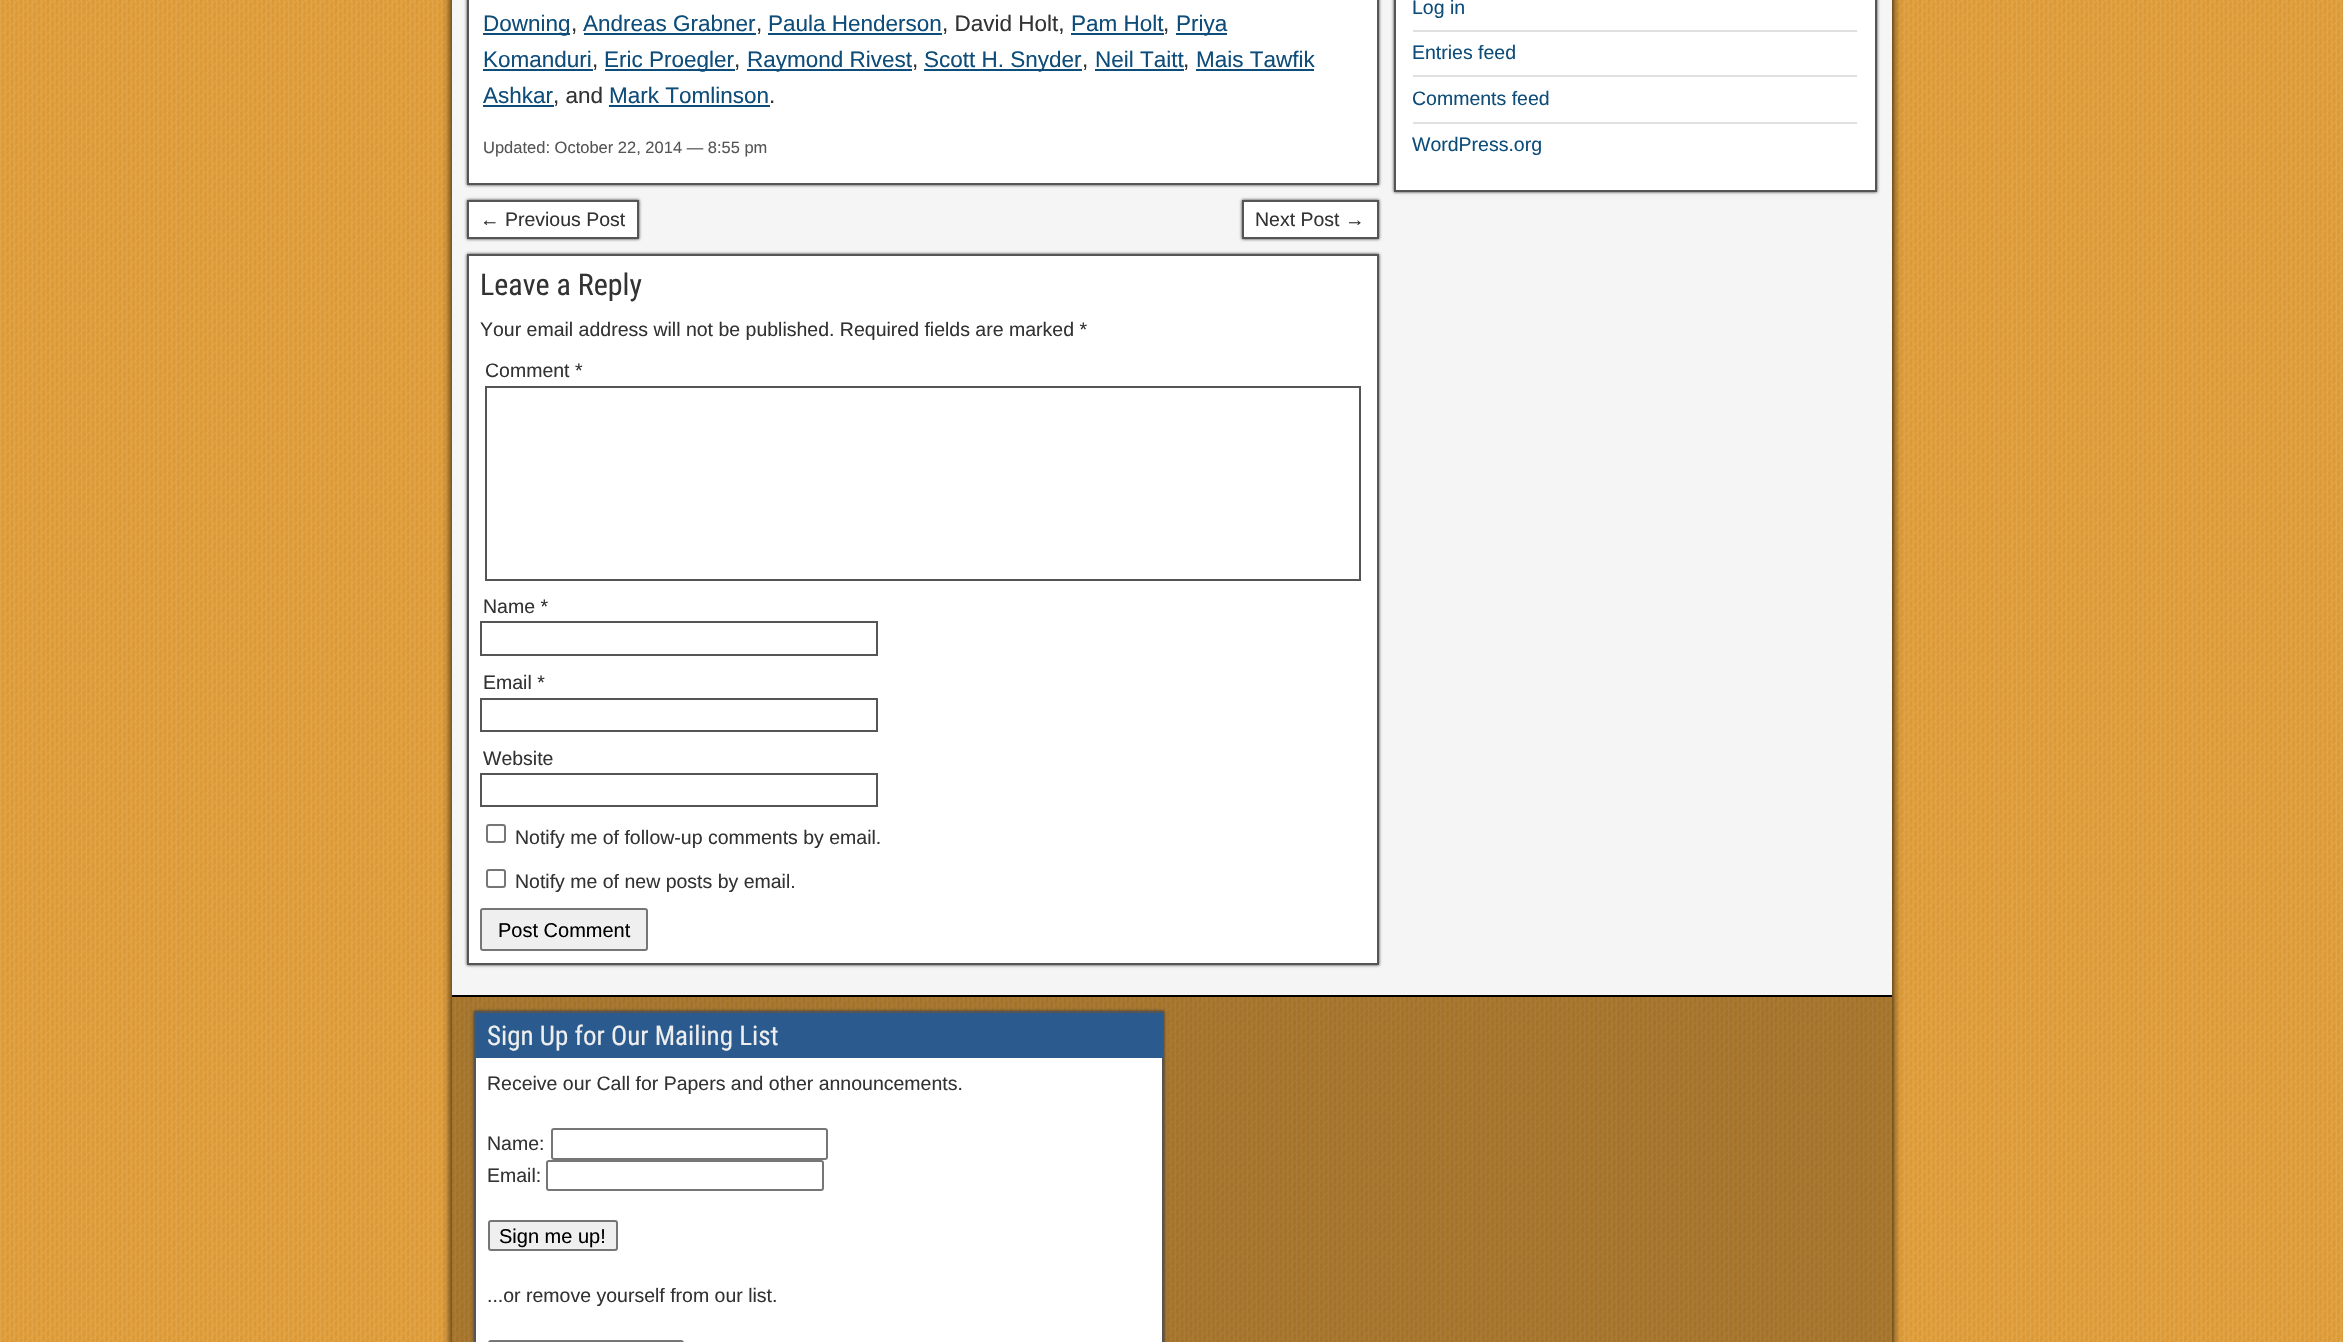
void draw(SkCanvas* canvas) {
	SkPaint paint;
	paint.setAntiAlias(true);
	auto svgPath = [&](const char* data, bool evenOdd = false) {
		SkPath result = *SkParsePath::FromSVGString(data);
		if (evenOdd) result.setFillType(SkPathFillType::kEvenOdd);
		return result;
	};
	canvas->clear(0xffdd9933);
	canvas->drawImageRect(SkImages::DeferredFromEncodedData(SkData::MakeFromFileName("img1.png")), SkRect::MakeXYWH(0, 0, 2343, 1342), SkSamplingOptions());
	canvas->save();
	canvas->clipPath(svgPath("M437 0H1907V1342H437ZM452-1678H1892V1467H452Z", true), true);
	paint.setColor(0xff000000);
	paint.setMaskFilter(SkMaskFilter::MakeBlur(kNormal_SkBlurStyle, 4.5));
	canvas->drawRect(SkRect::MakeXYWH(452, -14, 1440, 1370), paint);
	paint.setMaskFilter(nullptr);
	canvas->restore();
	paint.setColor(0xfff5f5f5);
	canvas->drawRect(SkRect::MakeXYWH(452, 0, 1440, 995), paint);
	paint.setColor(0xff333333);
	paint.setMaskFilter(SkMaskFilter::MakeBlur(kNormal_SkBlurStyle, 1.5));
	canvas->drawRect(SkRect::MakeXYWH(467, -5, 912, 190), paint);
	paint.setMaskFilter(nullptr);
	paint.setColor(0xffffffff);
	canvas->drawRect(SkRect::MakeXYWH(468, -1, 910, 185), paint);
	paint.setStroke(true);
	paint.setStrokeWidth(2);
	paint.setColor(0xff555555);
	canvas->drawRect(SkRect::MakeXYWH(468, -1, 910, 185), paint);
	paint.setStroke(false);
	paint.setColor(0xff0e4d7a);
	canvas->drawRect(SkRect::MakeXYWH(483, 33, 87, 2), paint);
	SkFont f1(fontMgr->matchFamilyStyle("Arimo", SkFontStyle::Normal()), 22.5);
	f1.setSubpixel(true);
	canvas->drawString("Downing", 483, 31, f1, paint);
	paint.setColor(0xff333333);
	canvas->drawString(",", 571, 31, f1, paint);
	paint.setColor(0xff0e4d7a);
	canvas->drawString("Andreas Grabner", 583, 31, f1, paint);
	canvas->drawRect(SkRect::MakeXYWH(584, 33, 172, 2), paint);
	paint.setColor(0xff333333);
	canvas->drawString(",", 756, 31, f1, paint);
	paint.setColor(0xff0e4d7a);
	canvas->drawString("Paula Henderson", 768, 31, f1, paint);
	canvas->drawRect(SkRect::MakeXYWH(768, 33, 174, 2), paint);
	paint.setColor(0xff333333);
	canvas->drawString(", David Holt,", 942, 31, f1, paint);
	paint.setColor(0xff0e4d7a);
	canvas->drawString("Pam Holt", 1071, 31, f1, paint);
	canvas->drawRect(SkRect::MakeXYWH(1071, 33, 93, 2), paint);
	paint.setColor(0xff333333);
	canvas->drawString(",", 1163, 31, f1, paint);
	paint.setColor(0xff0e4d7a);
	canvas->drawRect(SkRect::MakeXYWH(1176, 33, 51, 2), paint);
	canvas->drawString("Priya", 1176, 31, f1, paint);
	canvas->drawString("Komanduri", 483, 67, f1, paint);
	canvas->drawRect(SkRect::MakeXYWH(483, 69, 110, 2), paint);
	paint.setColor(0xff333333);
	canvas->drawString(",", 592, 67, f1, paint);
	paint.setColor(0xff0e4d7a);
	canvas->drawRect(SkRect::MakeXYWH(605, 69, 130, 2), paint);
	canvas->drawString("Eric Proegler", 604, 67, f1, paint);
	paint.setColor(0xff333333);
	canvas->drawString(",", 734, 67, f1, paint);
	paint.setColor(0xff0e4d7a);
	canvas->drawRect(SkRect::MakeXYWH(747, 69, 165, 2), paint);
	canvas->drawString("Raymond Rivest", 747, 67, f1, paint);
	paint.setColor(0xff333333);
	canvas->drawString(",", 912, 67, f1, paint);
	paint.setColor(0xff0e4d7a);
	canvas->drawRect(SkRect::MakeXYWH(924, 69, 158, 2), paint);
	canvas->drawString("Scott H. Snyder", 924, 67, f1, paint);
	paint.setColor(0xff333333);
	canvas->drawString(",", 1082, 67, f1, paint);
	paint.setColor(0xff0e4d7a);
	canvas->drawString("Neil Taitt", 1095, 67, f1, paint);
	canvas->drawRect(SkRect::MakeXYWH(1095, 69, 89, 2), paint);
	paint.setColor(0xff333333);
	canvas->drawString(",", 1183, 67, f1, paint);
	paint.setColor(0xff0e4d7a);
	canvas->drawString("Mais Tawfik", 1196, 67, f1, paint);
	canvas->drawRect(SkRect::MakeXYWH(1196, 69, 118, 2), paint);
	canvas->drawString("Ashkar", 483, 103, f1, paint);
	canvas->drawRect(SkRect::MakeXYWH(483, 105, 71, 2), paint);
	paint.setColor(0xff333333);
	canvas->drawString(", and", 553, 103, f1, paint);
	paint.setColor(0xff0e4d7a);
	canvas->drawString("Mark Tomlinson", 609, 103, f1, paint);
	canvas->drawRect(SkRect::MakeXYWH(609, 105, 161, 2), paint);
	paint.setColor(0xff333333);
	canvas->drawString(".", 769, 103, f1, paint);
	SkFont f2(fontMgr->matchFamilyStyle("Liberation Sans", SkFontStyle::Normal()), 16.5);
	f2.setSubpixel(true);
	paint.setColor(0xff555555);
	canvas->drawString("Updated: October 22, 2014 — 8:55 pm", 483, 153, f2, paint);
	paint.setColor(0xff333333);
	paint.setMaskFilter(SkMaskFilter::MakeBlur(kNormal_SkBlurStyle, 1.5));
	canvas->drawRect(SkRect::MakeXYWH(467, 200, 172, 39), paint);
	paint.setMaskFilter(nullptr);
	paint.setColor(0xffffffff);
	canvas->drawRect(SkRect::MakeXYWH(468, 201, 170, 37), paint);
	paint.setStroke(true);
	paint.setColor(0xff555555);
	canvas->drawRect(SkRect::MakeXYWH(468, 201, 170, 37), paint);
	SkFont f3(fontMgr->matchFamilyStyle("Liberation Sans", SkFontStyle::Normal()), 19.5);
	f3.setSubpixel(true);
	paint.setStroke(false);
	paint.setColor(0xff333333);
	canvas->drawString("← Previous Post", 480, 226, f3, paint);
	paint.setMaskFilter(SkMaskFilter::MakeBlur(kNormal_SkBlurStyle, 1.5));
	canvas->drawRect(SkRect::MakeXYWH(1242, 200, 137, 39), paint);
	paint.setMaskFilter(nullptr);
	paint.setColor(0xffffffff);
	canvas->drawRect(SkRect::MakeXYWH(1243, 201, 135, 37), paint);
	paint.setStroke(true);
	paint.setColor(0xff555555);
	canvas->drawRect(SkRect::MakeXYWH(1243, 201, 135, 37), paint);
	paint.setStroke(false);
	paint.setColor(0xff333333);
	canvas->drawString("Next Post →", 1255, 226, f3, paint);
	paint.setMaskFilter(SkMaskFilter::MakeBlur(kNormal_SkBlurStyle, 1.5));
	canvas->drawRect(SkRect::MakeXYWH(467, 254, 912, 711), paint);
	paint.setMaskFilter(nullptr);
	paint.setColor(0xffffffff);
	canvas->drawRect(SkRect::MakeXYWH(468, 255, 910, 709), paint);
	paint.setStroke(true);
	paint.setColor(0xff555555);
	canvas->drawRect(SkRect::MakeXYWH(468, 255, 910, 709), paint);
	SkFont f4(fontMgr->matchFamilyStyle("Roboto Condensed", SkFontStyle::Normal()), 30);
	f4.setSubpixel(true);
	paint.setStroke(false);
	paint.setColor(0xff333333);
	canvas->drawString("Leave a Reply", 480, 295, f4, paint);
	canvas->drawString("Your email address will not be published. Required fields are marked *", 480, 336, f3, paint);
	canvas->drawString("Comment *", 485, 377, f3, paint);
	paint.setStroke(true);
	paint.setColor(0xff555555);
	canvas->drawRect(SkRect::MakeXYWH(486, 387, 874, 193), paint);
	paint.setStroke(false);
	paint.setColor(0xff333333);
	canvas->drawString("Name *", 483, 613, f3, paint);
	paint.setStroke(true);
	paint.setColor(0xff555555);
	canvas->drawRect(SkRect::MakeXYWH(481, 622, 396, 33), paint);
	paint.setStroke(false);
	paint.setColor(0xff333333);
	canvas->drawString("Email *", 483, 689, f3, paint);
	paint.setStroke(true);
	paint.setColor(0xff555555);
	canvas->drawRect(SkRect::MakeXYWH(481, 699, 396, 32), paint);
	paint.setStroke(false);
	paint.setColor(0xff333333);
	canvas->drawString("Website", 483, 765, f3, paint);
	paint.setStroke(true);
	paint.setColor(0xff555555);
	canvas->drawRect(SkRect::MakeXYWH(481, 774, 396, 32), paint);
	paint.setColor(0xff767676);
	canvas->drawRoundRect(SkRect::MakeXYWH(487, 825, 18, 17), 2, 2, paint);
	paint.setStroke(false);
	paint.setColor(0xff333333);
	canvas->drawString("Notify me of follow-up comments by email.", 515, 844, f3, paint);
	paint.setStroke(true);
	paint.setColor(0xff767676);
	canvas->drawRoundRect(SkRect::MakeXYWH(487, 870, 18, 17), 2, 2, paint);
	paint.setStroke(false);
	paint.setColor(0xff333333);
	canvas->drawString("Notify me of new posts by email.", 515, 888, f3, paint);
	paint.setColor(0xffefefef);
	canvas->drawRoundRect(SkRect::MakeXYWH(481, 909, 166, 41), 2, 2, paint);
	paint.setStroke(true);
	paint.setColor(0xff767676);
	canvas->drawRoundRect(SkRect::MakeXYWH(481, 909, 166, 41), 2, 2, paint);
	SkFont f5(fontMgr->matchFamilyStyle("Liberation Sans", SkFontStyle::Normal()), 20);
	f5.setSubpixel(true);
	paint.setStroke(false);
	paint.setColor(0xff000000);
	canvas->drawString("Post Comment", 498, 937, f5, paint);
	paint.setColor(0xff333333);
	paint.setMaskFilter(SkMaskFilter::MakeBlur(kNormal_SkBlurStyle, 1.5));
	canvas->drawRect(SkRect::MakeXYWH(1394, -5, 483, 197), paint);
	paint.setMaskFilter(nullptr);
	paint.setColor(0xffffffff);
	canvas->drawRect(SkRect::MakeXYWH(1395, -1, 481, 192), paint);
	paint.setStroke(true);
	paint.setColor(0xff555555);
	canvas->drawRect(SkRect::MakeXYWH(1395, -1, 481, 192), paint);
	paint.setStroke(false);
	paint.setColor(0xffe0e0e0);
	canvas->drawRect(SkRect::MakeXYWH(1413, 30, 444, 2), paint);
	paint.setColor(0xff0e4d7a);
	canvas->drawString("Log in", 1412, 14, f3, paint);
	paint.setColor(0xffe0e0e0);
	canvas->drawRect(SkRect::MakeXYWH(1413, 75, 444, 2), paint);
	paint.setColor(0xff0e4d7a);
	canvas->drawString("Entries feed", 1412, 59, f3, paint);
	paint.setColor(0xffe0e0e0);
	canvas->drawRect(SkRect::MakeXYWH(1413, 122, 444, 2), paint);
	paint.setColor(0xff0e4d7a);
	canvas->drawString("Comments feed", 1412, 105, f3, paint);
	canvas->drawString("WordPress.org", 1412, 151, f3, paint);
	paint.setColor(0x40000000);
	canvas->drawRect(SkRect::MakeXYWH(452, 997, 1440, 345), paint);
	paint.setColor(0xff000000);
	canvas->drawRect(SkRect::MakeXYWH(452, 995, 1440, 2), paint);
	paint.setColor(0xff333333);
	paint.setMaskFilter(SkMaskFilter::MakeBlur(kNormal_SkBlurStyle, 1.5));
	canvas->drawRect(SkRect::MakeXYWH(474, 1011, 690, 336), paint);
	paint.setMaskFilter(nullptr);
	paint.setColor(0xffffffff);
	canvas->drawRect(SkRect::MakeXYWH(476, 1058, 686, 284), paint);
	paint.setStroke(true);
	paint.setColor(0xff555555);
	canvas->drawRect(SkRect::MakeXYWH(475, 1012, 688, 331), paint);
	paint.setStroke(false);
	paint.setColor(0xff2a5a8e);
	canvas->drawRect(SkRect::MakeXYWH(476, 1013, 687, 45), paint);
	SkFont f6(fontMgr->matchFamilyStyle("Roboto Condensed", SkFontStyle::Normal()), 27);
	f6.setSubpixel(true);
	paint.setColor(0xffeeeeee);
	canvas->drawString("Sign Up for Our Mailing List", 487, 1045, f6, paint);
	paint.setColor(0xff333333);
	canvas->drawString("Receive our Call for Papers and other announcements.", 487, 1090, f3, paint);
	canvas->drawString("Name:", 487, 1150, f3, paint);
	paint.setStroke(true);
	paint.setColor(0xff767676);
	canvas->drawRoundRect(SkRect::MakeXYWH(552, 1129, 275, 30), 2, 2, paint);
	paint.setStroke(false);
	paint.setColor(0xff333333);
	canvas->drawString("Email:", 487, 1182, f3, paint);
	paint.setStroke(true);
	paint.setColor(0xff767676);
	canvas->drawRoundRect(SkRect::MakeXYWH(547, 1161, 276, 29), 2, 2, paint);
	paint.setStroke(false);
	paint.setColor(0xffefefef);
	canvas->drawRoundRect(SkRect::MakeXYWH(489, 1221, 128, 29), 2, 2, paint);
	paint.setStroke(true);
	paint.setColor(0xff767676);
	canvas->drawRoundRect(SkRect::MakeXYWH(489, 1221, 128, 29), 2, 2, paint);
	paint.setStroke(false);
	paint.setColor(0xff000000);
	canvas->drawString("Sign me up!", 499, 1243, f5, paint);
	paint.setColor(0xff333333);
	canvas->drawString("...or remove yourself from our list.", 487, 1302, f3, paint);
	paint.setStroke(true);
	paint.setColor(0xff767676);
	canvas->drawRoundRect(SkRect::MakeXYWH(489, 1341, 194, 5), 2, 2, paint);
}
